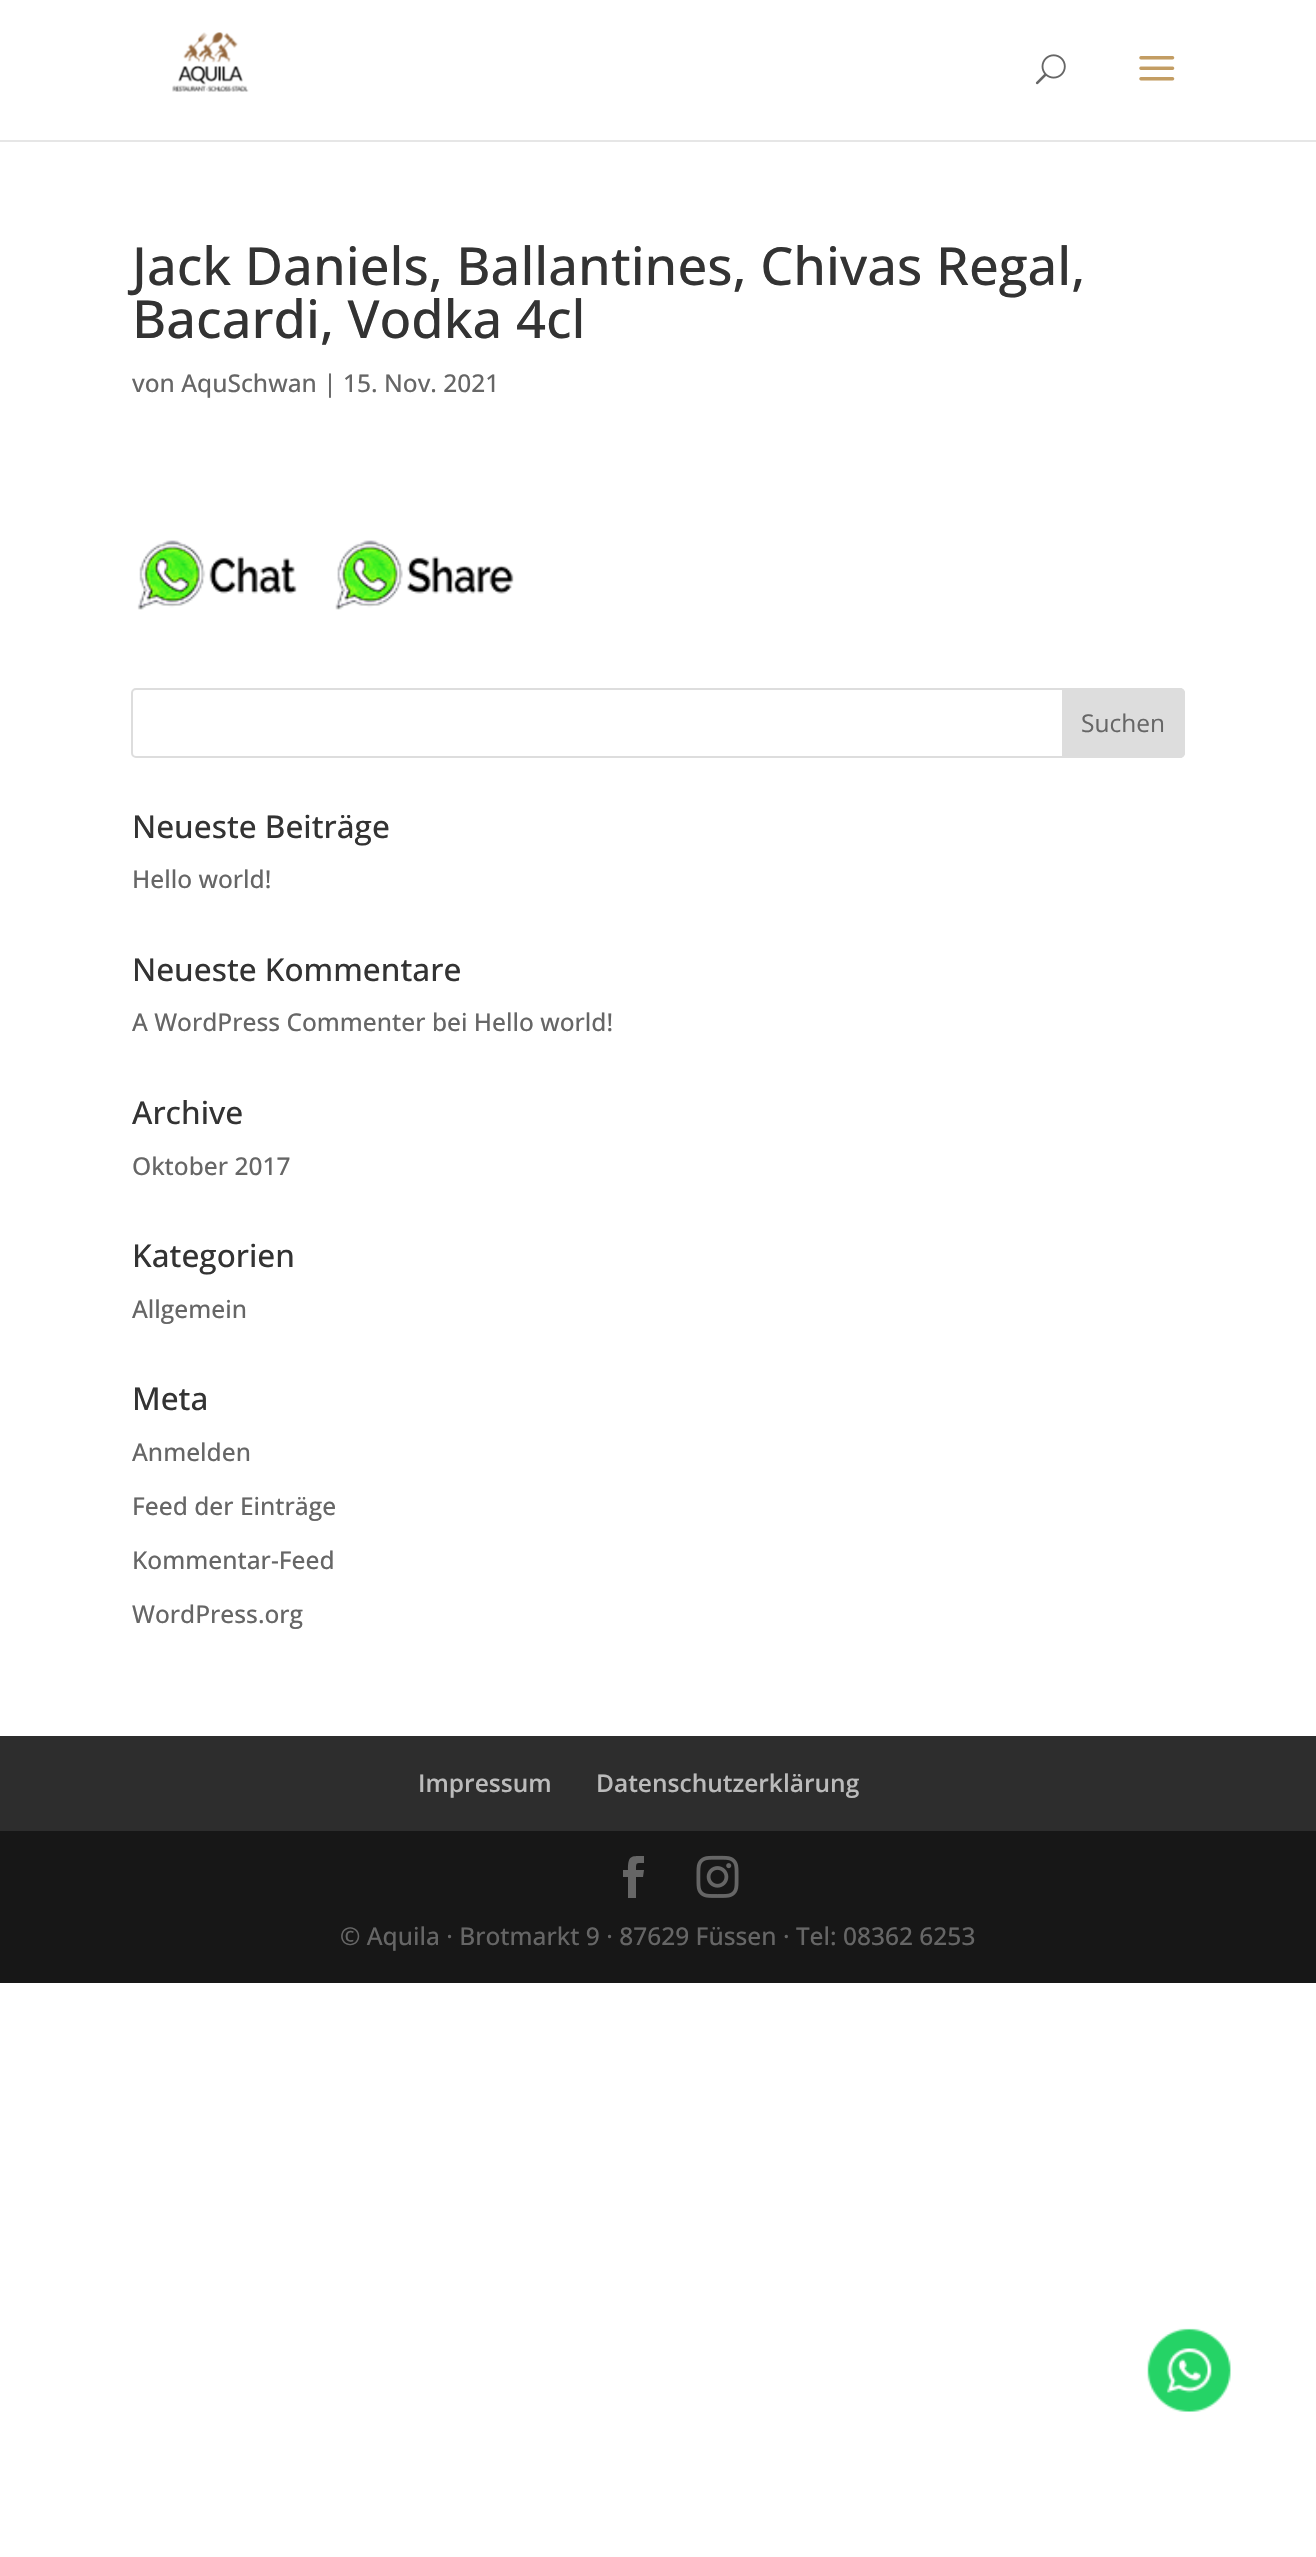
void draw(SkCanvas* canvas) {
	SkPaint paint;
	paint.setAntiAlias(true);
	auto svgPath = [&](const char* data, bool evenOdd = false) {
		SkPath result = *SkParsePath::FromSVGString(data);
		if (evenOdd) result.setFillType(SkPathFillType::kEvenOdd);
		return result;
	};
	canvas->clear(0xffffffff);
	paint.setColor(0xffe6e6e6);
	canvas->drawRect(SkRect::MakeXYWH(0, 140, 1316, 2), paint);
	canvas->drawImageRect(SkImages::DeferredFromEncodedData(SkData::MakeFromFileName("img1.png")), SkRect::MakeXYWH(172, 32, 77, 60), SkSamplingOptions());
	canvas->drawImageRect(SkImages::DeferredFromEncodedData(SkData::MakeFromFileName("img2.png")), SkRect::MakeXYWH(1035, 54, 31, 31), SkSamplingOptions());
	canvas->drawImageRect(SkImages::DeferredFromEncodedData(SkData::MakeFromFileName("img3.png")), SkRect::MakeXYWH(1139, 56, 36, 25), SkSamplingOptions());
	SkFont f1(fontMgr->matchFamilyStyle("Open Sans", SkFontStyle(500, SkFontStyle::kNormal_Width, SkFontStyle::kUpright_Slant)), 52.5);
	f1.setSubpixel(true);
	paint.setColor(0xff333333);
	canvas->drawString("Jack Daniels, Ballantines, Chivas Regal,", 132, 285, f1, paint);
	canvas->drawString("Bacardi, Vodka 4cl", 132, 338, f1, paint);
	SkFont f2(fontMgr->matchFamilyStyle("Open Sans", SkFontStyle(500, SkFontStyle::kNormal_Width, SkFontStyle::kUpright_Slant)), 24.5);
	f2.setSubpixel(true);
	paint.setColor(0xff666666);
	canvas->drawString("von AquSchwan | 15. Nov. 2021", 132, 392, f2, paint);
	canvas->drawImageRect(SkImages::DeferredFromEncodedData(SkData::MakeFromFileName("img4.png")), SkRect::MakeXYWH(137, 540, 160, 70), SkSamplingOptions());
	canvas->drawImageRect(SkImages::DeferredFromEncodedData(SkData::MakeFromFileName("img5.png")), SkRect::MakeXYWH(335, 540, 179, 70), SkSamplingOptions());
	paint.setStroke(true);
	paint.setStrokeWidth(2);
	paint.setColor(0xffdddddd);
	canvas->drawRoundRect(SkRect::MakeXYWH(132, 689, 1052, 68), 4, 4, paint);
	paint.setStroke(false);
	canvas->drawPath(svgPath("M1063 689H1180C1182 689 1184 691 1184 693V753C1184 755 1182 757 1180 757H1063Z"), paint);
	paint.setStroke(true);
	canvas->drawPath(svgPath("M1063 689H1180C1182 689 1184 691 1184 693V753C1184 755 1182 757 1180 757H1063Z"), paint);
	SkFont f3(fontMgr->matchFamilyStyle("Open Sans", SkFontStyle::Normal()), 24.5);
	f3.setSubpixel(true);
	paint.setStroke(false);
	paint.setColor(0xff666666);
	canvas->drawString("Suchen", 1081, 732, f3, paint);
	SkFont f4(fontMgr->matchFamilyStyle("Open Sans", SkFontStyle(500, SkFontStyle::kNormal_Width, SkFontStyle::kUpright_Slant)), 31.5);
	f4.setSubpixel(true);
	paint.setColor(0xff333333);
	canvas->drawString("Neueste Beiträge", 132, 838, f4, paint);
	paint.setColor(0xff666666);
	canvas->drawString("Hello world!", 132, 888, f2, paint);
	paint.setColor(0xff333333);
	canvas->drawString("Neueste Kommentare", 132, 981, f4, paint);
	paint.setColor(0xff666666);
	canvas->drawString("A WordPress Commenter bei Hello world!", 132, 1031, f2, paint);
	paint.setColor(0xff333333);
	canvas->drawString("Archive", 132, 1124, f4, paint);
	paint.setColor(0xff666666);
	canvas->drawString("Oktober 2017", 132, 1175, f2, paint);
	paint.setColor(0xff333333);
	canvas->drawString("Kategorien", 132, 1267, f4, paint);
	paint.setColor(0xff666666);
	canvas->drawString("Allgemein", 132, 1318, f2, paint);
	paint.setColor(0xff333333);
	canvas->drawString("Meta", 132, 1410, f4, paint);
	paint.setColor(0xff666666);
	canvas->drawString("Anmelden", 132, 1461, f2, paint);
	canvas->drawString("Feed der Einträge", 132, 1515, f2, paint);
	canvas->drawString("Kommentar-Feed", 132, 1569, f2, paint);
	canvas->drawString("WordPress.org", 132, 1623, f2, paint);
	paint.setColor(0xff2d2d2d);
	canvas->drawRect(SkRect::MakeXYWH(0, 1736, 1316, 95), paint);
	SkFont f5(fontMgr->matchFamilyStyle("Open Sans", SkFontStyle(600, SkFontStyle::kNormal_Width, SkFontStyle::kUpright_Slant)), 24.5);
	f5.setSubpixel(true);
	paint.setColor(0xffbbbbbb);
	canvas->drawString("Impressum", 418, 1792, f5, paint);
	canvas->drawString("Datenschutzerklärung", 596, 1792, f5, paint);
	paint.setColor(0xff171717);
	canvas->drawRect(SkRect::MakeXYWH(0, 1831, 1316, 152), paint);
	paint.setColor(0xff666666);
	canvas->drawPath(svgPath("M628 1898H636V1877H643L644 1870H636C636 1862 636 1863 644 1863V1856C631 1856 628 1855 628 1870H623V1877H628Z"), paint);
	canvas->drawImageRect(SkImages::DeferredFromEncodedData(SkData::MakeFromFileName("img6.png")), SkRect::MakeXYWH(696, 1855, 43, 43), SkSamplingOptions());
	canvas->drawString("© Aquila · Brotmarkt 9 · 87629 Füssen · Tel: 08362 6253", 340, 1945, f2, paint);
	canvas->drawImageRect(SkImages::DeferredFromEncodedData(SkData::MakeFromFileName("img7.png")), SkRect::MakeXYWH(1147, 2328, 84, 84), SkSamplingOptions());
}
